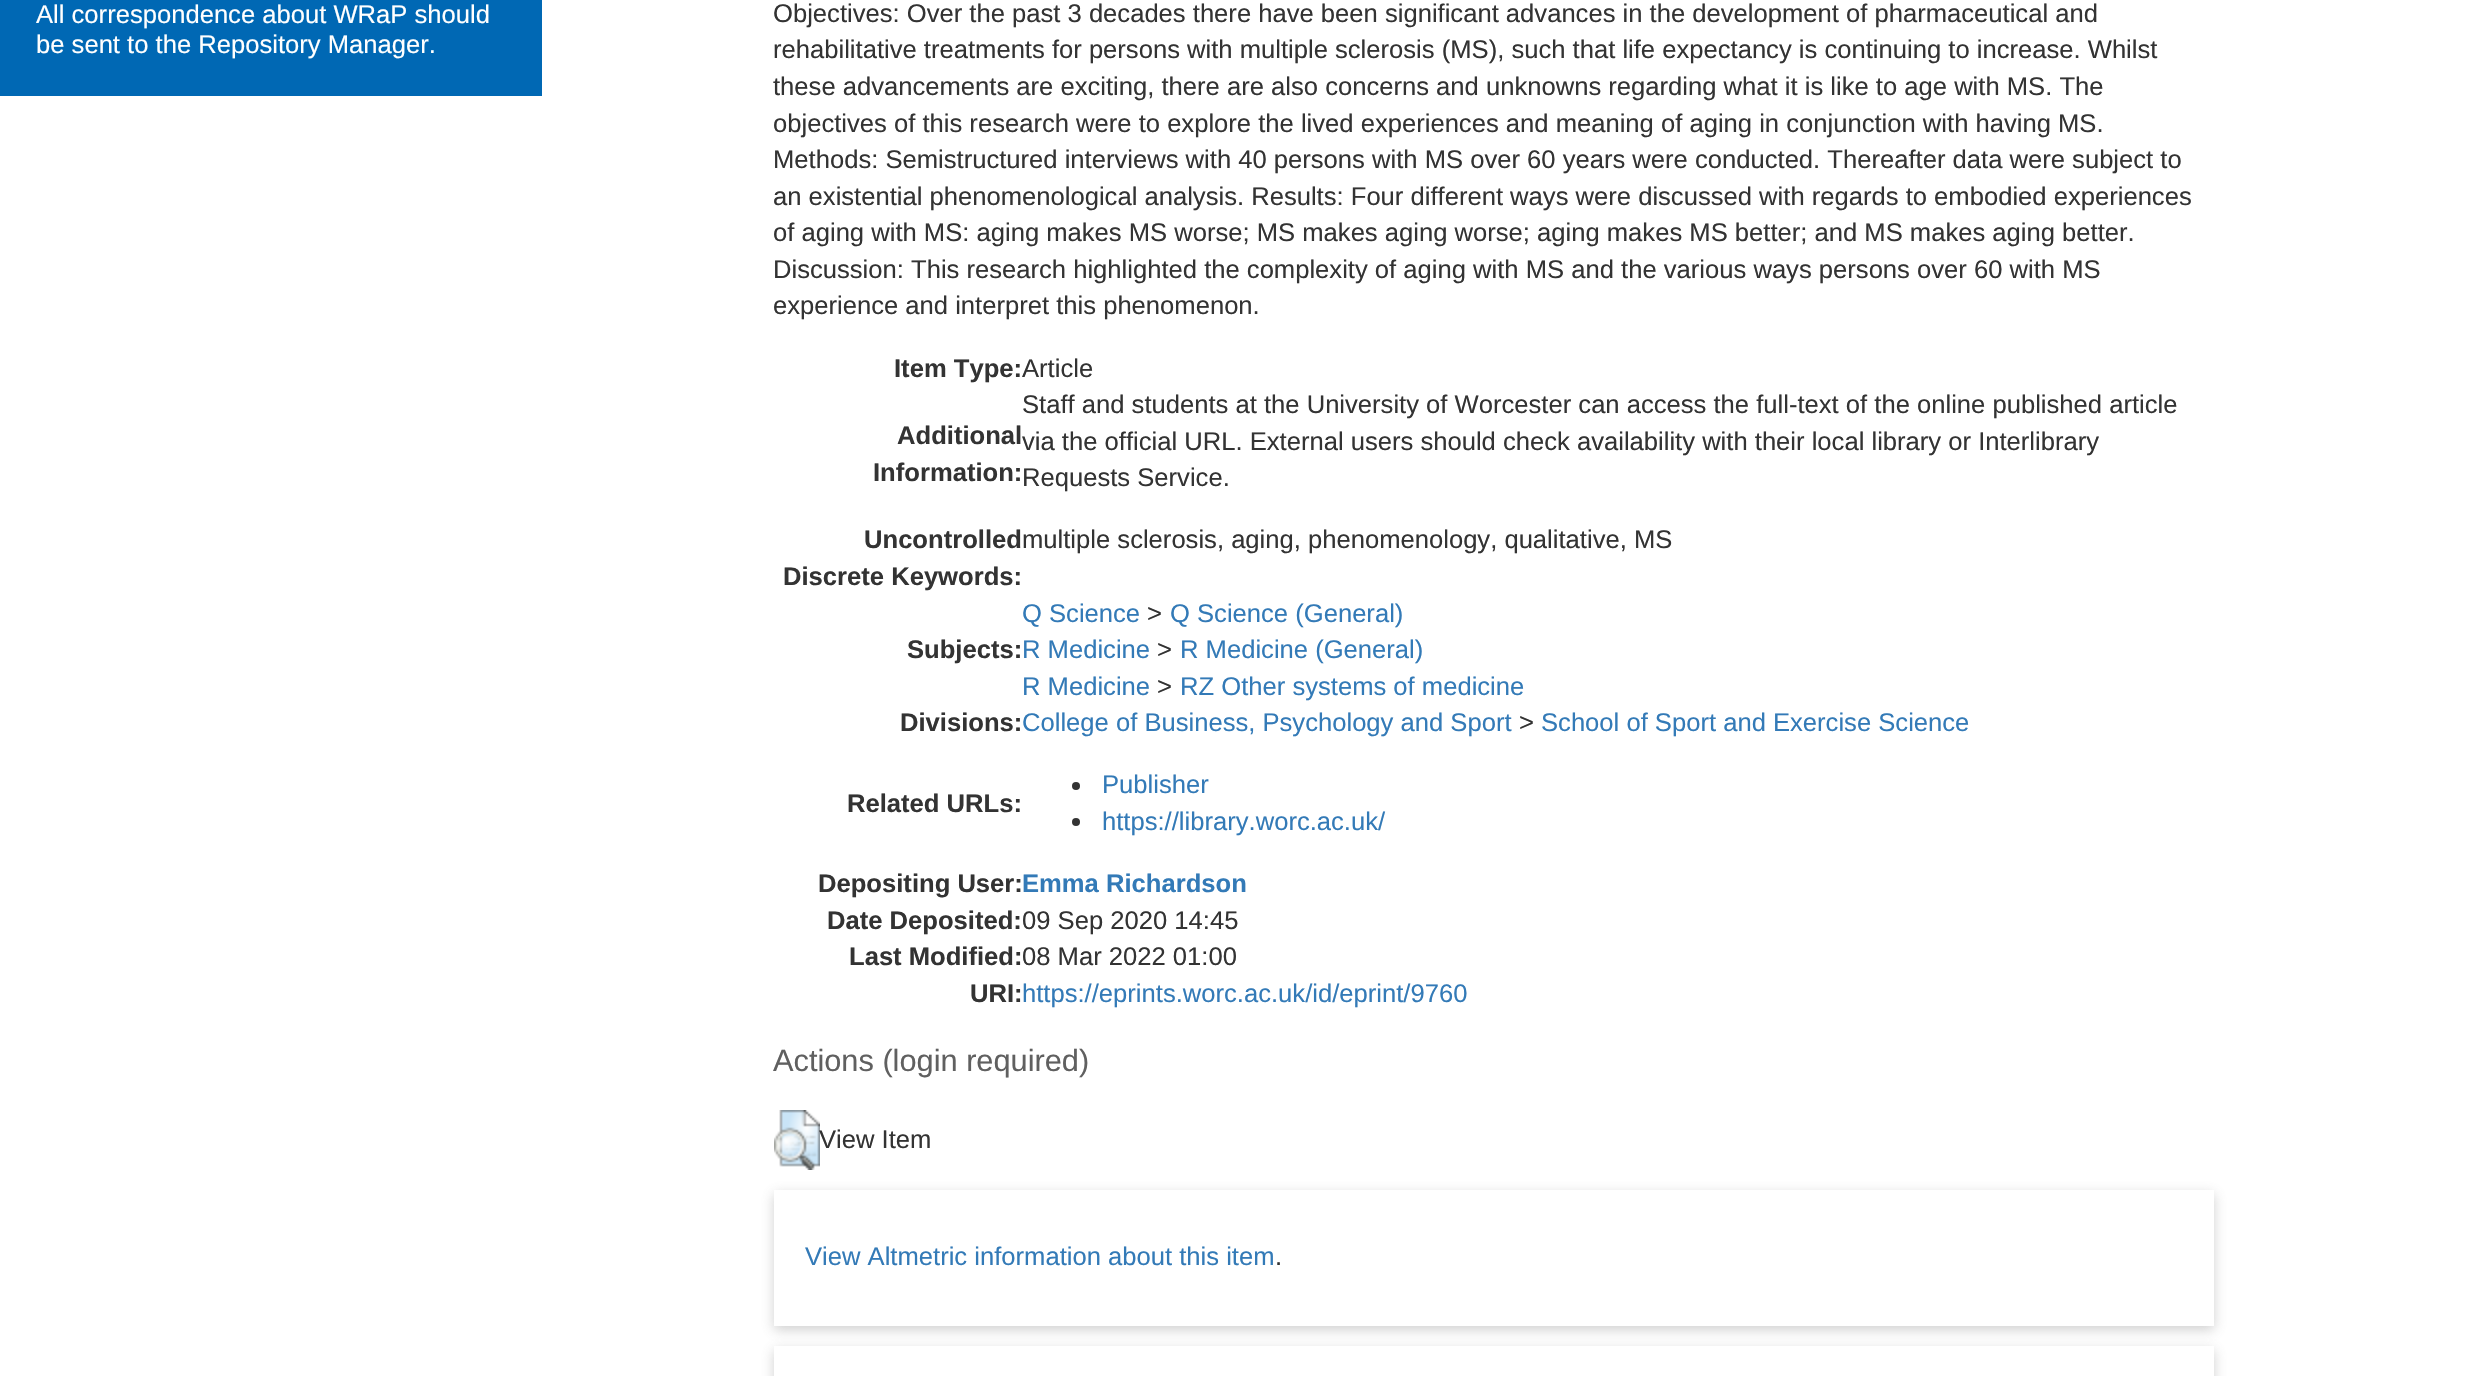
void draw(SkCanvas* canvas) {
	SkPaint paint;
	paint.setAntiAlias(true);
	auto svgPath = [&](const char* data, bool evenOdd = false) {
		SkPath result = *SkParsePath::FromSVGString(data);
		if (evenOdd) result.setFillType(SkPathFillType::kEvenOdd);
		return result;
	};
	canvas->clear(0xffffffff);
	paint.setColor(0xff0068b4);
	canvas->drawRect(SkRect::MakeXYWH(0, 0, 542, 96), paint);
	SkFont f1(fontMgr->matchFamilyStyle("Liberation Sans", SkFontStyle::Normal()), 25.6);
	f1.setSubpixel(true);
	paint.setColor(0xffffffff);
	canvas->drawString("All correspondence about WRaP should", 36, 23, f1, paint);
	canvas->drawString("be sent to the Repository Manager.", 36, 53, f1, paint);
	paint.setColor(0xff333333);
	canvas->drawString("Objectives: Over the past 3 decades there have been significant advances in the development of pharmaceutical and", 773, 22, f1, paint);
	canvas->drawString("rehabilitative treatments for persons with multiple sclerosis (MS), such that life expectancy is continuing to increase. Whilst", 773, 58, f1, paint);
	canvas->drawString("these advancements are exciting, there are also concerns and unknowns regarding what it is like to age with MS. The", 773, 95, f1, paint);
	canvas->drawString("objectives of this research were to explore the lived experiences and meaning of aging in conjunction with having MS.", 773, 132, f1, paint);
	canvas->drawString("Methods: Semistructured interviews with 40 persons with MS over 60 years were conducted. Thereafter data were subject to", 773, 168, f1, paint);
	canvas->drawString("an existential phenomenological analysis. Results: Four different ways were discussed with regards to embodied experiences", 773, 205, f1, paint);
	canvas->drawString("of aging with MS: aging makes MS worse; MS makes aging worse; aging makes MS better; and MS makes aging better.", 773, 241, f1, paint);
	canvas->drawString("Discussion: This research highlighted the complexity of aging with MS and the various ways persons over 60 with MS", 773, 278, f1, paint);
	canvas->drawString("experience and interpret this phenomenon.", 773, 314, f1, paint);
	SkFont f2(fontMgr->matchFamilyStyle("Liberation Sans", SkFontStyle::Bold()), 25.6);
	f2.setSubpixel(true);
	canvas->drawString("Item Type:", 894, 377, f2, paint);
	canvas->drawString("Article", 1022, 377, f1, paint);
	canvas->drawString("Additional", 897, 444, f2, paint);
	canvas->drawString("Information:", 873, 481, f2, paint);
	canvas->drawString("Staff and students at the University of Worcester can access the full-text of the online published article", 1022, 413, f1, paint);
	canvas->drawString("via the official URL. External users should check availability with their local library or Interlibrary", 1022, 450, f1, paint);
	canvas->drawString("Requests Service.", 1022, 486, f1, paint);
	canvas->drawString("Uncontrolled", 864, 548, f2, paint);
	canvas->drawString("Discrete Keywords:", 783, 585, f2, paint);
	canvas->drawString("multiple sclerosis, aging, phenomenology, qualitative, MS", 1022, 548, f1, paint);
	canvas->drawString("Subjects:", 907, 658, f2, paint);
	paint.setColor(0xff337ab7);
	canvas->drawString("Q Science", 1022, 622, f1, paint);
	paint.setColor(0xff333333);
	canvas->drawString(">", 1147, 622, f1, paint);
	paint.setColor(0xff337ab7);
	canvas->drawString("Q Science (General)", 1170, 622, f1, paint);
	canvas->drawString("R Medicine", 1022, 658, f1, paint);
	paint.setColor(0xff333333);
	canvas->drawString(">", 1157, 658, f1, paint);
	paint.setColor(0xff337ab7);
	canvas->drawString("R Medicine (General)", 1180, 658, f1, paint);
	canvas->drawString("R Medicine", 1022, 695, f1, paint);
	paint.setColor(0xff333333);
	canvas->drawString(">", 1157, 695, f1, paint);
	paint.setColor(0xff337ab7);
	canvas->drawString("RZ Other systems of medicine", 1180, 695, f1, paint);
	paint.setColor(0xff333333);
	canvas->drawString("Divisions:", 900, 731, f2, paint);
	paint.setColor(0xff337ab7);
	canvas->drawString("College of Business, Psychology and Sport", 1022, 731, f1, paint);
	paint.setColor(0xff333333);
	canvas->drawString(">", 1519, 731, f1, paint);
	paint.setColor(0xff337ab7);
	canvas->drawString("School of Sport and Exercise Science", 1541, 731, f1, paint);
	paint.setColor(0xff333333);
	canvas->drawString("Related URLs:", 847, 812, f2, paint);
	canvas->drawCircle(1076, 786, 4, paint);
	paint.setColor(0xff337ab7);
	canvas->drawString("Publisher", 1102, 793, f1, paint);
	paint.setColor(0xff333333);
	canvas->drawCircle(1076, 822, 4, paint);
	paint.setColor(0xff337ab7);
	canvas->drawString("https://library.worc.ac.uk/", 1102, 830, f1, paint);
	paint.setColor(0xff333333);
	canvas->drawString("Depositing User:", 818, 892, f2, paint);
	paint.setColor(0xff337ab7);
	canvas->drawString("Emma Richardson", 1022, 892, f2, paint);
	paint.setColor(0xff333333);
	canvas->drawString("Date Deposited:", 827, 929, f2, paint);
	canvas->drawString("09 Sep 2020 14:45", 1022, 929, f1, paint);
	canvas->drawString("Last Modified:", 849, 965, f2, paint);
	canvas->drawString("08 Mar 2022 01:00", 1022, 965, f1, paint);
	canvas->drawString("URI:", 970, 1002, f2, paint);
	paint.setColor(0xff337ab7);
	canvas->drawString("https://eprints.worc.ac.uk/id/eprint/9760", 1022, 1002, f1, paint);
	SkFont f3(fontMgr->matchFamilyStyle("Liberation Sans", SkFontStyle::Normal()), 30.75);
	f3.setSubpixel(true);
	paint.setColor(0xff606060);
	canvas->drawString("Actions (login required)", 773, 1071, f3, paint);
	canvas->drawImageRect(SkImages::DeferredFromEncodedData(SkData::MakeFromFileName("img1.png")), SkRect::MakeXYWH(774, 1110, 46, 60), SkSamplingOptions());
	paint.setColor(0xff333333);
	canvas->drawString("View Item", 819, 1148, f1, paint);
	canvas->save();
	canvas->clipPath(svgPath("M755 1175H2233V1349H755ZM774 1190H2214V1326H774Z", true), true);
	paint.setColor(0x4d646464);
	paint.setMaskFilter(SkMaskFilter::MakeBlur(kNormal_SkBlurStyle, 6));
	canvas->drawRect(SkRect::MakeXYWH(774, 1194, 1440, 136), paint);
	paint.setMaskFilter(nullptr);
	canvas->restore();
	paint.setColor(0xff337ab7);
	canvas->drawString("View Altmetric information about this item", 805, 1265, f1, paint);
	paint.setColor(0xff333333);
	canvas->drawString(".", 1275, 1265, f1, paint);
	canvas->save();
	canvas->clipPath(svgPath("M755 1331H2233V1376H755ZM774 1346H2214V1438H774Z", true), true);
	paint.setColor(0x4d646464);
	paint.setMaskFilter(SkMaskFilter::MakeBlur(kNormal_SkBlurStyle, 6));
	canvas->drawRect(SkRect::MakeXYWH(774, 1350, 1440, 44), paint);
	paint.setMaskFilter(nullptr);
	canvas->restore();
}
